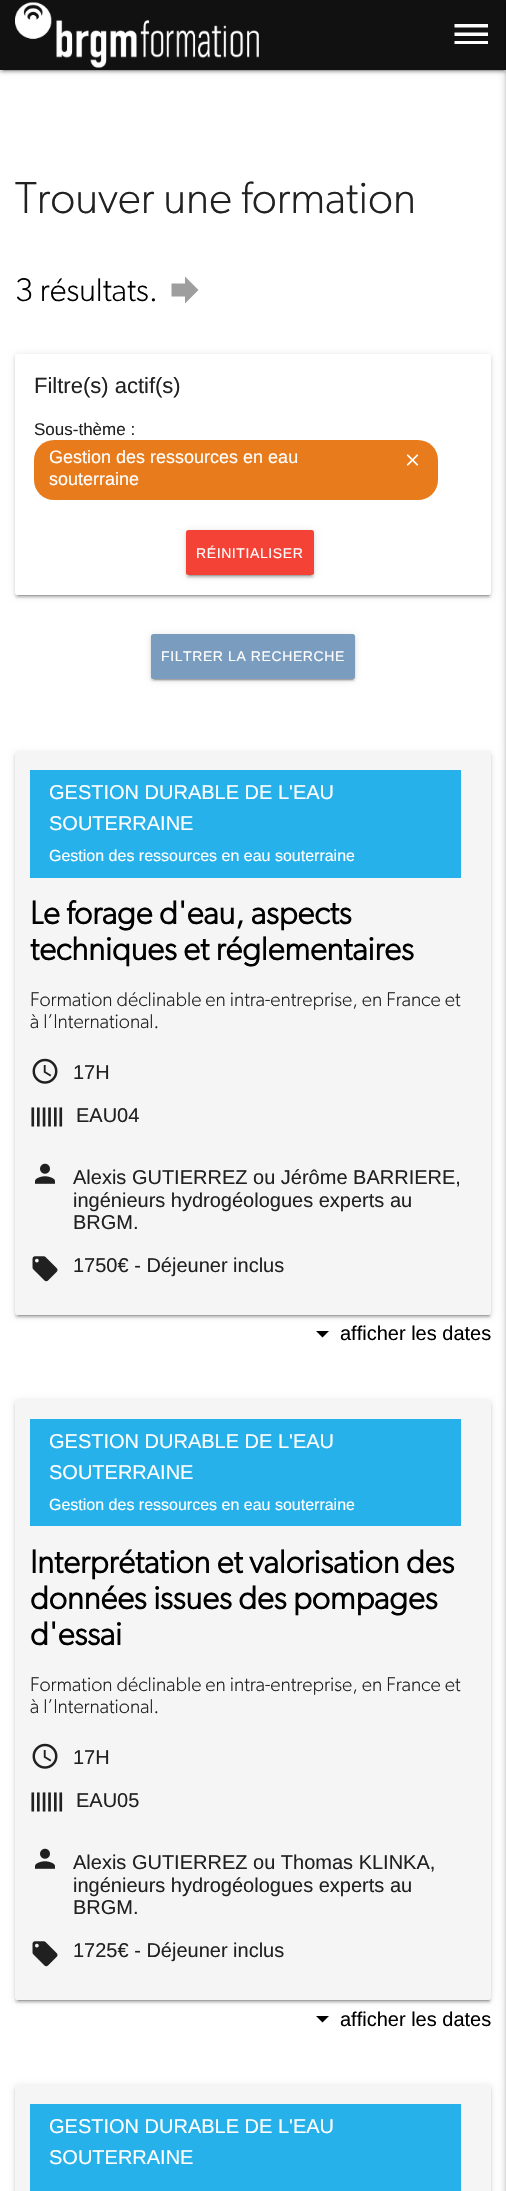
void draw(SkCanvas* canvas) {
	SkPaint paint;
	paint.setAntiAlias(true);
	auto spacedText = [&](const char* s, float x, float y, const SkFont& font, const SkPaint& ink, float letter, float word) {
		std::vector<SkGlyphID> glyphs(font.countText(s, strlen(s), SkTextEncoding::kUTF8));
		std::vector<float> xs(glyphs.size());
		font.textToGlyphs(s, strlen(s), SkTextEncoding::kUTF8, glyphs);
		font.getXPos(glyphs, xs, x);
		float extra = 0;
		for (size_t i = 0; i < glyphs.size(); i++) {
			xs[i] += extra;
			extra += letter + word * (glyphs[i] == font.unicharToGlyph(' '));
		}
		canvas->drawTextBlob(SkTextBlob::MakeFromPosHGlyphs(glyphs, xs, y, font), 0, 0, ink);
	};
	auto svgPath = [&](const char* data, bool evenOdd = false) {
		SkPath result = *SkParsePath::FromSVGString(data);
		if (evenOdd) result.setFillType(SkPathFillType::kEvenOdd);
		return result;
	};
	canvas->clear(0xffffffff);
	paint.setColor(0x33000000);
	paint.setMaskFilter(SkMaskFilter::MakeBlur(kNormal_SkBlurStyle, 0.5));
	canvas->drawRect(SkRect::MakeXYWH(3, 6, 501, 65), paint);
	paint.setMaskFilter(nullptr);
	paint.setColor(0x1f000000);
	paint.setMaskFilter(SkMaskFilter::MakeBlur(kNormal_SkBlurStyle, 3));
	canvas->drawRect(SkRect::MakeXYWH(0, 1, 506, 70), paint);
	paint.setMaskFilter(nullptr);
	paint.setColor(0x24000000);
	paint.setMaskFilter(SkMaskFilter::MakeBlur(kNormal_SkBlurStyle, 1));
	canvas->drawRect(SkRect::MakeXYWH(0, 3, 506, 70), paint);
	paint.setMaskFilter(nullptr);
	paint.setColor(0xff111111);
	canvas->drawRect(SkRect::MakeXYWH(0, 0, 506, 70), paint);
	canvas->drawImageRect(SkImages::DeferredFromEncodedData(SkData::MakeFromFileName("img1.png")), SkRect::MakeXYWH(15, 2, 244, 66), SkSamplingOptions());
	paint.setColor(0xffffffff);
	canvas->drawPath(svgPath("M454.5 24H488V27.5H454.5ZM454.5 32.5H488V36H454.5ZM454.5 41H488V44H454.5Z"), paint);
	paint.setColor(0x1f000000);
	paint.setMaskFilter(SkMaskFilter::MakeBlur(kNormal_SkBlurStyle, 3));
	canvas->drawRect(SkRect::MakeXYWH(506, 1, 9, 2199), paint);
	paint.setMaskFilter(nullptr);
	paint.setColor(0x24000000);
	paint.setMaskFilter(SkMaskFilter::MakeBlur(kNormal_SkBlurStyle, 1));
	canvas->drawRect(SkRect::MakeXYWH(506, 3, 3, 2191), paint);
	paint.setMaskFilter(nullptr);
	SkFont f1(fontMgr->matchFamilyStyle("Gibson", SkFontStyle(200, SkFontStyle::kNormal_Width, SkFontStyle::kUpright_Slant)), 45);
	f1.setSubpixel(true);
	paint.setColor(0xff212121);
	canvas->drawString("Trouver une formation", 15, 213, f1, paint);
	SkFont f2(fontMgr->matchFamilyStyle("Gibson", SkFontStyle(200, SkFontStyle::kNormal_Width, SkFontStyle::kUpright_Slant)), 32.75);
	f2.setSubpixel(true);
	paint.setColor(0xff000000);
	canvas->drawString("3 résultats.", 15, 301, f2, paint);
	paint.setColor(0xff9e9e9e);
	canvas->drawPath(svgPath("M185 283.5V276.5L198.5 290L185 303.5V296.5H171.5V283.5Z"), paint);
	paint.setColor(0x33000000);
	paint.setMaskFilter(SkMaskFilter::MakeBlur(kNormal_SkBlurStyle, 0.5));
	canvas->drawRect(SkRect::MakeXYWH(18, 360, 471, 236), paint);
	paint.setMaskFilter(nullptr);
	paint.setColor(0x1f000000);
	paint.setMaskFilter(SkMaskFilter::MakeBlur(kNormal_SkBlurStyle, 3));
	canvas->drawRoundRect(SkRect::MakeXYWH(15, 355, 476, 241), 2.5, 2.5, paint);
	paint.setMaskFilter(nullptr);
	paint.setColor(0x24000000);
	paint.setMaskFilter(SkMaskFilter::MakeBlur(kNormal_SkBlurStyle, 1));
	canvas->drawRoundRect(SkRect::MakeXYWH(15, 356, 476, 242), 2.5, 2.5, paint);
	paint.setMaskFilter(nullptr);
	paint.setColor(0xffffffff);
	canvas->drawRoundRect(SkRect::MakeXYWH(15, 354, 476, 241), 2.5, 2.5, paint);
	SkFont f3(fontMgr->matchFamilyStyle("Liberation Sans", SkFontStyle::Normal()), 22);
	f3.setSubpixel(true);
	paint.setColor(0xff212121);
	canvas->drawString("Filtre(s) actif(s)", 34, 393, f3, paint);
	SkFont f4(fontMgr->matchFamilyStyle("Liberation Sans", SkFontStyle::Normal()), 17);
	f4.setSubpixel(true);
	canvas->drawString("Sous-thème :", 34, 435, f4, paint);
	paint.setColor(0xffe87b1c);
	canvas->drawRoundRect(SkRect::MakeXYWH(34, 440, 404, 60), 20, 20, paint);
	SkFont f5(fontMgr->matchFamilyStyle("Liberation Sans", SkFontStyle::Normal()), 18);
	f5.setSubpixel(true);
	paint.setColor(0xffffffff);
	canvas->drawString("Gestion des ressources en eau", 49, 463, f5, paint);
	canvas->drawString("souterraine", 49, 485, f5, paint);
	canvas->drawImageRect(SkImages::DeferredFromEncodedData(SkData::MakeFromFileName("img2.png")), SkRect::MakeXYWH(406, 454, 13, 12), SkSamplingOptions());
	paint.setColor(0x33000000);
	paint.setMaskFilter(SkMaskFilter::MakeBlur(kNormal_SkBlurStyle, 0.5));
	canvas->drawRect(SkRect::MakeXYWH(189, 536, 122, 40), paint);
	paint.setMaskFilter(nullptr);
	paint.setColor(0x1f000000);
	paint.setMaskFilter(SkMaskFilter::MakeBlur(kNormal_SkBlurStyle, 3));
	canvas->drawRoundRect(SkRect::MakeXYWH(186, 531, 128, 45), 2.5, 2.5, paint);
	paint.setMaskFilter(nullptr);
	paint.setColor(0x24000000);
	paint.setMaskFilter(SkMaskFilter::MakeBlur(kNormal_SkBlurStyle, 1));
	canvas->drawRoundRect(SkRect::MakeXYWH(186, 533, 128, 45), 2.5, 2.5, paint);
	paint.setMaskFilter(nullptr);
	paint.setColor(0xfff44336);
	canvas->drawRoundRect(SkRect::MakeXYWH(186, 530, 128, 45), 2.5, 2.5, paint);
	SkFont f6(fontMgr->matchFamilyStyle("Liberation Sans", SkFontStyle::Normal()), 14);
	f6.setSubpixel(true);
	paint.setColor(0xffffffff);
	spacedText("RÉINITIALISER", 196, 558, f6, paint, 0.6, 0);
	paint.setColor(0x33000000);
	paint.setMaskFilter(SkMaskFilter::MakeBlur(kNormal_SkBlurStyle, 0.5));
	canvas->drawRect(SkRect::MakeXYWH(154, 640, 199, 40), paint);
	paint.setMaskFilter(nullptr);
	paint.setColor(0x1f000000);
	paint.setMaskFilter(SkMaskFilter::MakeBlur(kNormal_SkBlurStyle, 3));
	canvas->drawRoundRect(SkRect::MakeXYWH(151, 635, 204, 45), 2.5, 2.5, paint);
	paint.setMaskFilter(nullptr);
	paint.setColor(0x24000000);
	paint.setMaskFilter(SkMaskFilter::MakeBlur(kNormal_SkBlurStyle, 1));
	canvas->drawRoundRect(SkRect::MakeXYWH(151, 636, 204, 45), 2.5, 2.5, paint);
	paint.setMaskFilter(nullptr);
	paint.setColor(0xff799cbf);
	canvas->drawRoundRect(SkRect::MakeXYWH(151, 634, 204, 45), 2.5, 2.5, paint);
	paint.setColor(0xffffffff);
	spacedText("FILTRER LA RECHERCHE", 161, 661, f6, paint, 0.6, 0);
	paint.setColor(0x33000000);
	paint.setMaskFilter(SkMaskFilter::MakeBlur(kNormal_SkBlurStyle, 0.5));
	canvas->drawRect(SkRect::MakeXYWH(18, 758, 471, 558), paint);
	paint.setMaskFilter(nullptr);
	paint.setColor(0x1f000000);
	paint.setMaskFilter(SkMaskFilter::MakeBlur(kNormal_SkBlurStyle, 3));
	canvas->drawRoundRect(SkRect::MakeXYWH(15, 753, 476, 563), 2.5, 2.5, paint);
	paint.setMaskFilter(nullptr);
	paint.setColor(0x24000000);
	paint.setMaskFilter(SkMaskFilter::MakeBlur(kNormal_SkBlurStyle, 1));
	canvas->drawRoundRect(SkRect::MakeXYWH(15, 754, 476, 564), 2.5, 2.5, paint);
	paint.setMaskFilter(nullptr);
	paint.setColor(0xfff5f5f5);
	canvas->drawRoundRect(SkRect::MakeXYWH(15, 751, 476, 564), 2.5, 2.5, paint);
	paint.setColor(0xff27b1ea);
	canvas->drawRect(SkRect::MakeXYWH(30, 770, 431, 108), paint);
	SkFont f7(fontMgr->matchFamilyStyle("Liberation Sans", SkFontStyle::Normal()), 20);
	f7.setSubpixel(true);
	paint.setColor(0xffffffff);
	canvas->drawString("GESTION DURABLE DE L'EAU", 49, 799, f7, paint);
	canvas->drawString("SOUTERRAINE", 49, 830, f7, paint);
	SkFont f8(fontMgr->matchFamilyStyle("Liberation Sans", SkFontStyle::Normal()), 16);
	f8.setSubpixel(true);
	canvas->drawString("Gestion des ressources en eau souterraine", 49, 861, f8, paint);
	SkFont f9(fontMgr->matchFamilyStyle("Gibson", SkFontStyle::Bold()), 32.75);
	f9.setSubpixel(true);
	paint.setColor(0xff000000);
	canvas->drawString("Le forage d'eau, aspects", 30, 924, f9, paint);
	canvas->drawString("techniques et réglementaires", 30, 960, f9, paint);
	SkFont f10(fontMgr->matchFamilyStyle("Gibson", SkFontStyle(200, SkFontStyle::kNormal_Width, SkFontStyle::kUpright_Slant)), 20);
	f10.setSubpixel(true);
	paint.setColor(0xff212121);
	canvas->drawString("Formation déclinable en intra-entreprise, en France et", 30, 1006, f10, paint);
	canvas->drawString("à l’International.", 30, 1028, f10, paint);
	canvas->drawImageRect(SkImages::DeferredFromEncodedData(SkData::MakeFromFileName("img3.png")), SkRect::MakeXYWH(32, 1058, 26, 26), SkSamplingOptions());
	canvas->drawString("17H", 73, 1079, f7, paint);
	SkFont f11(fontMgr->matchFamilyStyle("Liberation Sans", SkFontStyle::Bold()), 20);
	f11.setSubpixel(true);
	canvas->drawString("||||||", 30, 1122, f11, paint);
	canvas->drawString("EAU04", 76, 1122, f7, paint);
	canvas->drawImageRect(SkImages::DeferredFromEncodedData(SkData::MakeFromFileName("img4.png")), SkRect::MakeXYWH(35, 1163, 20, 21), SkSamplingOptions());
	canvas->drawString("Alexis GUTIERREZ ou Jérôme BARRIERE,", 73, 1184, f7, paint);
	canvas->drawString("ingénieurs hydrogéologues experts au", 73, 1207, f7, paint);
	canvas->drawString("BRGM.", 73, 1229, f7, paint);
	canvas->drawImageRect(SkImages::DeferredFromEncodedData(SkData::MakeFromFileName("img5.png")), SkRect::MakeXYWH(32, 1256, 26, 26), SkSamplingOptions());
	canvas->drawString("1750€ - Déjeuner inclus", 73, 1272, f7, paint);
	paint.setColor(0xff000000);
	canvas->drawPath(svgPath("M316 1331H329L322.5 1337.5Z"), paint);
	canvas->drawString("afficher les dates", 340, 1340, f7, paint);
	paint.setColor(0x33000000);
	paint.setMaskFilter(SkMaskFilter::MakeBlur(kNormal_SkBlurStyle, 0.5));
	canvas->drawRect(SkRect::MakeXYWH(18, 1406, 471, 595), paint);
	paint.setMaskFilter(nullptr);
	paint.setColor(0x1f000000);
	paint.setMaskFilter(SkMaskFilter::MakeBlur(kNormal_SkBlurStyle, 3));
	canvas->drawRoundRect(SkRect::MakeXYWH(15, 1401, 476, 600), 2.5, 2.5, paint);
	paint.setMaskFilter(nullptr);
	paint.setColor(0x24000000);
	paint.setMaskFilter(SkMaskFilter::MakeBlur(kNormal_SkBlurStyle, 1));
	canvas->drawRoundRect(SkRect::MakeXYWH(15, 1403, 476, 600), 2.5, 2.5, paint);
	paint.setMaskFilter(nullptr);
	paint.setColor(0xfff5f5f5);
	canvas->drawRoundRect(SkRect::MakeXYWH(15, 1400, 476, 600), 2.5, 2.5, paint);
	paint.setColor(0xff27b1ea);
	canvas->drawRect(SkRect::MakeXYWH(30, 1419, 431, 107), paint);
	paint.setColor(0xffffffff);
	canvas->drawString("GESTION DURABLE DE L'EAU", 49, 1448, f7, paint);
	canvas->drawString("SOUTERRAINE", 49, 1479, f7, paint);
	canvas->drawString("Gestion des ressources en eau souterraine", 49, 1510, f8, paint);
	paint.setColor(0xff000000);
	canvas->drawString("Interprétation et valorisation des", 30, 1573, f9, paint);
	canvas->drawString("données issues des pompages", 30, 1609, f9, paint);
	canvas->drawString("d'essai", 30, 1645, f9, paint);
	paint.setColor(0xff212121);
	canvas->drawString("Formation déclinable en intra-entreprise, en France et", 30, 1691, f10, paint);
	canvas->drawString("à l’International.", 30, 1713, f10, paint);
	canvas->drawImageRect(SkImages::DeferredFromEncodedData(SkData::MakeFromFileName("img3.png")), SkRect::MakeXYWH(32, 1743, 26, 26), SkSamplingOptions());
	canvas->drawString("17H", 73, 1764, f7, paint);
	canvas->drawString("||||||", 30, 1807, f11, paint);
	canvas->drawString("EAU05", 76, 1807, f7, paint);
	canvas->drawImageRect(SkImages::DeferredFromEncodedData(SkData::MakeFromFileName("img4.png")), SkRect::MakeXYWH(35, 1848, 20, 21), SkSamplingOptions());
	canvas->drawString("Alexis GUTIERREZ ou Thomas KLINKA,", 73, 1869, f7, paint);
	canvas->drawString("ingénieurs hydrogéologues experts au", 73, 1892, f7, paint);
	canvas->drawString("BRGM.", 73, 1914, f7, paint);
	canvas->drawImageRect(SkImages::DeferredFromEncodedData(SkData::MakeFromFileName("img5.png")), SkRect::MakeXYWH(32, 1941, 26, 26), SkSamplingOptions());
	canvas->drawString("1725€ - Déjeuner inclus", 73, 1957, f7, paint);
	paint.setColor(0xff000000);
	canvas->drawPath(svgPath("M316 2016H329L322.5 2022.5Z"), paint);
	canvas->drawString("afficher les dates", 340, 2026, f7, paint);
	paint.setColor(0x1f000000);
	paint.setMaskFilter(SkMaskFilter::MakeBlur(kNormal_SkBlurStyle, 3));
	canvas->drawRoundRect(SkRect::MakeXYWH(15, 2086, 476, 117), 2.5, 2.5, paint);
	paint.setMaskFilter(nullptr);
	paint.setColor(0x24000000);
	paint.setMaskFilter(SkMaskFilter::MakeBlur(kNormal_SkBlurStyle, 1));
	canvas->drawRoundRect(SkRect::MakeXYWH(15, 2088, 476, 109), 2.5, 2.5, paint);
	paint.setMaskFilter(nullptr);
	paint.setColor(0xfff5f5f5);
	canvas->drawRoundRect(SkRect::MakeXYWH(15, 2085, 476, 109), 2.5, 2.5, paint);
	paint.setColor(0xff27b1ea);
	canvas->drawRect(SkRect::MakeXYWH(30, 2104, 431, 87), paint);
	paint.setColor(0xffffffff);
	canvas->drawString("GESTION DURABLE DE L'EAU", 49, 2133, f7, paint);
	canvas->drawString("SOUTERRAINE", 49, 2164, f7, paint);
	paint.setColor(0x1f000000);
	paint.setMaskFilter(SkMaskFilter::MakeBlur(kNormal_SkBlurStyle, 3));
	canvas->drawRect(SkRect::MakeXYWH(506, 1, 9, 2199), paint);
	paint.setMaskFilter(nullptr);
}
